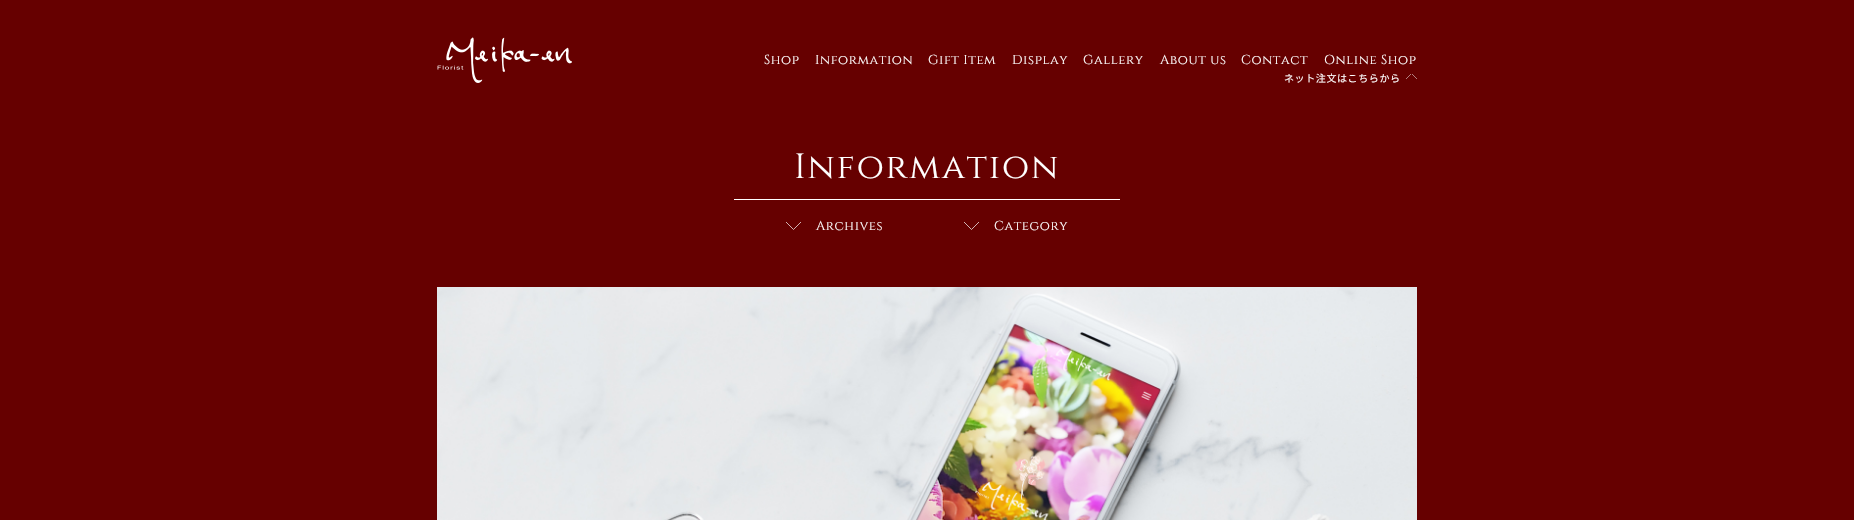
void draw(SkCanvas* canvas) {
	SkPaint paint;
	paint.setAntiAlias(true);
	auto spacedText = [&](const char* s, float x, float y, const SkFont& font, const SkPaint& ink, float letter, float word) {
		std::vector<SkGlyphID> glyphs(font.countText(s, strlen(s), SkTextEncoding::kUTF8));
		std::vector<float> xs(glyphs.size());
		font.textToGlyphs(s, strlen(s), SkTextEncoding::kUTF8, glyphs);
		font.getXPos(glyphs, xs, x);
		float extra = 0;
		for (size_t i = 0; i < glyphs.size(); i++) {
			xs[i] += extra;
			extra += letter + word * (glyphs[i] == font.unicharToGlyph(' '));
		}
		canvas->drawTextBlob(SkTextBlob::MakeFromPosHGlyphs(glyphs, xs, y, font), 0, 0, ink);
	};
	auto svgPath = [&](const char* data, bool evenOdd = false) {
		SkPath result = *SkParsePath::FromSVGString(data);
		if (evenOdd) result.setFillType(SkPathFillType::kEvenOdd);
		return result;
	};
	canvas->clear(0xff660000);
	canvas->drawImageRect(SkImages::DeferredFromEncodedData(SkData::MakeFromFileName("img1.png")), SkRect::MakeXYWH(437, 37, 135, 46), SkSamplingOptions());
	SkFont f1(fontMgr->matchFamilyStyle("Cinzel", SkFontStyle::Normal()), 13);
	f1.setSubpixel(true);
	paint.setColor(0xffffffff);
	spacedText("Shop", 764, 64, f1, paint, 0.6, 0);
	spacedText("Information", 815, 64, f1, paint, 0.6, 0);
	spacedText("Gift Item", 928, 64, f1, paint, 0.6, 0);
	spacedText("Display", 1012, 64, f1, paint, 0.6, 0);
	spacedText("Gallery", 1083, 64, f1, paint, 0.6, 0);
	spacedText("About us", 1160, 64, f1, paint, 0.6, 0);
	spacedText("Contact", 1241, 64, f1, paint, 0.6, 0);
	spacedText("Online Shop", 1324, 64, f1, paint, 0.6, 0);
	SkFont f2(fontMgr->matchFamilyStyle("Noto Sans JP", SkFontStyle::Normal()), 10);
	f2.setSubpixel(true);
	spacedText("ネット注文はこちらから", 1284, 82, f2, paint, 0.6, 0);
	canvas->save();
	canvas->clipRect(SkRect::MakeXYWH(1406, 74, 11, 5));
	paint.setStroke(true);
	paint.setStrokeWidth(0.5);
	canvas->drawPath(svgPath("M1406 79L1411.5 73.5L1417 79"), paint);
	canvas->restore();
	SkFont f3(fontMgr->matchFamilyStyle("Cinzel", SkFontStyle::Normal()), 35);
	f3.setSubpixel(true);
	paint.setStroke(false);
	spacedText("Information", 794, 178, f3, paint, 1.75, 0);
	canvas->drawRect(SkRect::MakeXYWH(734, 199, 386, 1), paint);
	paint.setStroke(true);
	paint.setStrokeWidth(0.7);
	canvas->drawPath(svgPath("M801 222L793.5 229.5L786 222"), paint);
	paint.setStroke(false);
	spacedText("Archives", 816, 230, f1, paint, 0.6, 0);
	paint.setStroke(true);
	canvas->drawPath(svgPath("M979 222L971.5 229.5L964 222"), paint);
	paint.setStroke(false);
	spacedText("Category", 994, 230, f1, paint, 0.6, 0);
	canvas->drawImageRect(SkImages::DeferredFromEncodedData(SkData::MakeFromFileName("img2.png")), SkRect::MakeXYWH(437, 287, 980, 233), SkSamplingOptions());
}
